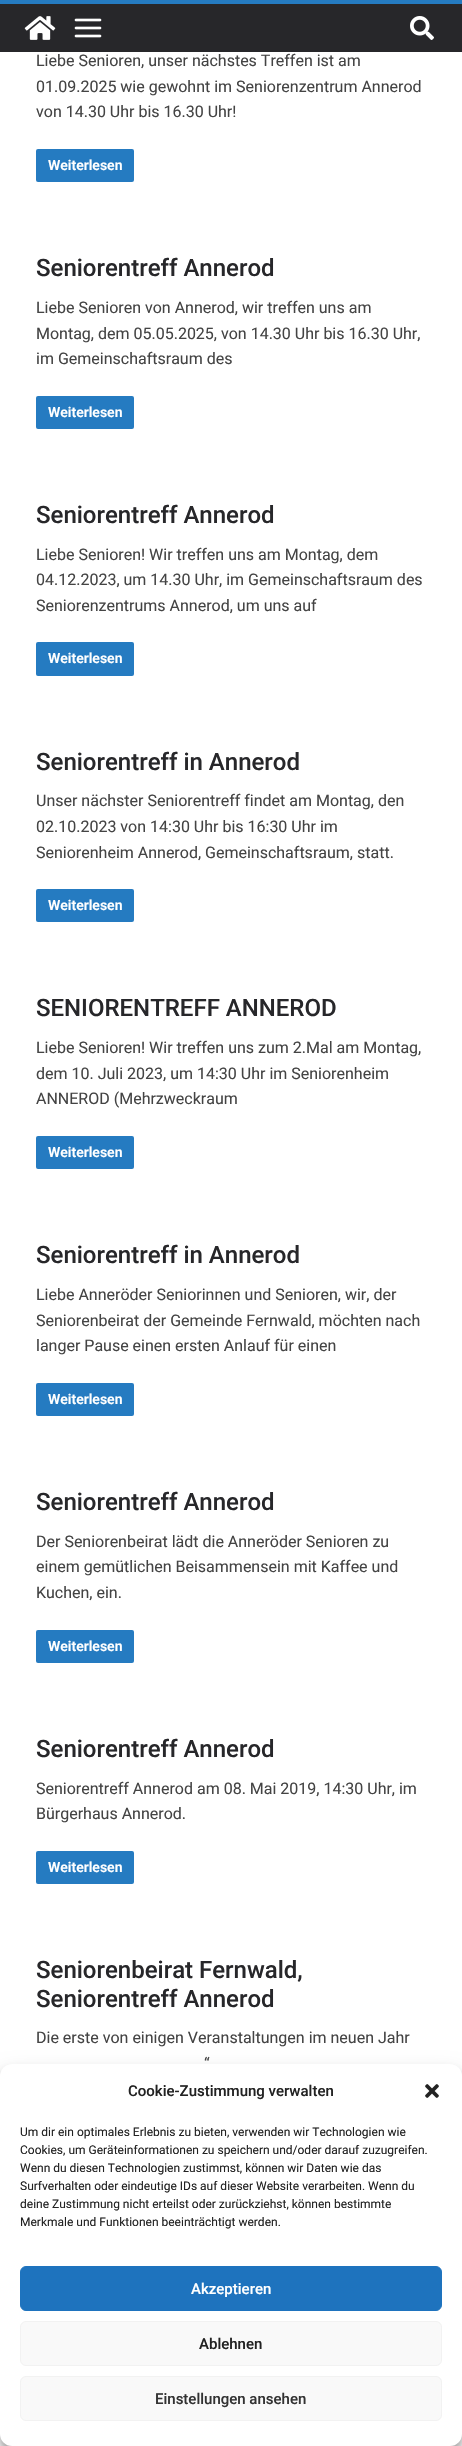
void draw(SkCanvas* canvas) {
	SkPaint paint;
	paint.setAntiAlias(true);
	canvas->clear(0xffffffff);
	paint.setColor(0xff27272a);
	canvas->drawRect(SkRect::MakeXYWH(0, 4, 462, 48), paint);
	paint.setColor(0xff257bc1);
	canvas->drawRect(SkRect::MakeXYWH(0, 0, 462, 4), paint);
	canvas->drawImageRect(SkImages::DeferredFromEncodedData(SkData::MakeFromFileName("img1.png")), SkRect::MakeXYWH(24, 16, 32, 24), SkSamplingOptions());
	canvas->drawImageRect(SkImages::DeferredFromEncodedData(SkData::MakeFromFileName("img2.png")), SkRect::MakeXYWH(74, 18, 28, 20), SkSamplingOptions());
	canvas->drawImageRect(SkImages::DeferredFromEncodedData(SkData::MakeFromFileName("img3.png")), SkRect::MakeXYWH(410, 16, 24, 24), SkSamplingOptions());
	SkFont f1(fontMgr->matchFamilyStyle("Roboto", SkFontStyle::Normal()), 16);
	f1.setSubpixel(true);
	paint.setColor(0xff444444);
	canvas->drawString("Liebe Senioren, unser nächstes Treffen ist am", 36, 66, f1, paint);
	canvas->drawString("01.09.2025 wie gewohnt im Seniorenzentrum Annerod", 36, 92, f1, paint);
	canvas->drawString("von 14.30 Uhr bis 16.30 Uhr!", 36, 117, f1, paint);
	paint.setColor(0xff257bc1);
	canvas->drawRoundRect(SkRect::MakeXYWH(36, 149, 98, 33), 2, 2, paint);
	SkFont f2(fontMgr->matchFamilyStyle("Roboto", SkFontStyle(600, SkFontStyle::kNormal_Width, SkFontStyle::kUpright_Slant)), 14);
	f2.setSubpixel(true);
	paint.setColor(0xffffffff);
	canvas->drawString("Weiterlesen", 48, 170, f2, paint);
	SkFont f3(fontMgr->matchFamilyStyle("Roboto", SkFontStyle(500, SkFontStyle::kNormal_Width, SkFontStyle::kUpright_Slant)), 24);
	f3.setSubpixel(true);
	paint.setColor(0xff27272a);
	canvas->drawString("Seniorentreff Annerod", 36, 276, f3, paint);
	paint.setColor(0xff444444);
	canvas->drawString("Liebe Senioren von Annerod, wir treffen uns am", 36, 313, f1, paint);
	canvas->drawString("Montag, dem 05.05.2025, von 14.30 Uhr bis 16.30 Uhr,", 36, 339, f1, paint);
	canvas->drawString("im Gemeinschaftsraum des", 36, 364, f1, paint);
	paint.setColor(0xff257bc1);
	canvas->drawRoundRect(SkRect::MakeXYWH(36, 396, 98, 33), 2, 2, paint);
	paint.setColor(0xffffffff);
	canvas->drawString("Weiterlesen", 48, 417, f2, paint);
	paint.setColor(0xff27272a);
	canvas->drawString("Seniorentreff Annerod", 36, 523, f3, paint);
	paint.setColor(0xff444444);
	canvas->drawString("Liebe Senioren! Wir treffen uns am Montag, dem", 36, 560, f1, paint);
	canvas->drawString("04.12.2023, um 14.30 Uhr, im Gemeinschaftsraum des", 36, 585, f1, paint);
	canvas->drawString("Seniorenzentrums Annerod, um uns auf", 36, 611, f1, paint);
	paint.setColor(0xff257bc1);
	canvas->drawRoundRect(SkRect::MakeXYWH(36, 642, 98, 34), 2, 2, paint);
	paint.setColor(0xffffffff);
	canvas->drawString("Weiterlesen", 48, 663, f2, paint);
	paint.setColor(0xff27272a);
	canvas->drawString("Seniorentreff in Annerod", 36, 770, f3, paint);
	paint.setColor(0xff444444);
	canvas->drawString("Unser nächster Seniorentreff findet am Montag, den", 36, 806, f1, paint);
	canvas->drawString("02.10.2023 von 14:30 Uhr bis 16:30 Uhr im", 36, 832, f1, paint);
	canvas->drawString("Seniorenheim Annerod, Gemeinschaftsraum, statt.", 36, 858, f1, paint);
	paint.setColor(0xff257bc1);
	canvas->drawRoundRect(SkRect::MakeXYWH(36, 889, 98, 33), 2, 2, paint);
	paint.setColor(0xffffffff);
	canvas->drawString("Weiterlesen", 48, 910, f2, paint);
	paint.setColor(0xff27272a);
	canvas->drawString("SENIORENTREFF ANNEROD", 36, 1016, f3, paint);
	paint.setColor(0xff444444);
	canvas->drawString("Liebe Senioren! Wir treffen uns zum 2.Mal am Montag,", 36, 1053, f1, paint);
	canvas->drawString("dem 10. Juli 2023, um 14:30 Uhr im Seniorenheim", 36, 1079, f1, paint);
	canvas->drawString("ANNEROD (Mehrzweckraum", 36, 1104, f1, paint);
	paint.setColor(0xff257bc1);
	canvas->drawRoundRect(SkRect::MakeXYWH(36, 1136, 98, 33), 2, 2, paint);
	paint.setColor(0xffffffff);
	canvas->drawString("Weiterlesen", 48, 1157, f2, paint);
	paint.setColor(0xff27272a);
	canvas->drawString("Seniorentreff in Annerod", 36, 1263, f3, paint);
	paint.setColor(0xff444444);
	canvas->drawString("Liebe Anneröder Seniorinnen und Senioren, wir, der", 36, 1300, f1, paint);
	canvas->drawString("Seniorenbeirat der Gemeinde Fernwald, möchten nach", 36, 1326, f1, paint);
	canvas->drawString("langer Pause einen ersten Anlauf für einen", 36, 1351, f1, paint);
	paint.setColor(0xff257bc1);
	canvas->drawRoundRect(SkRect::MakeXYWH(36, 1383, 98, 33), 2, 2, paint);
	paint.setColor(0xffffffff);
	canvas->drawString("Weiterlesen", 48, 1404, f2, paint);
	paint.setColor(0xff27272a);
	canvas->drawString("Seniorentreff Annerod", 36, 1510, f3, paint);
	paint.setColor(0xff444444);
	canvas->drawString("Der Seniorenbeirat lädt die Anneröder Senioren zu", 36, 1547, f1, paint);
	canvas->drawString("einem gemütlichen Beisammensein mit Kaffee und", 36, 1572, f1, paint);
	canvas->drawString("Kuchen, ein.", 36, 1598, f1, paint);
	paint.setColor(0xff257bc1);
	canvas->drawRoundRect(SkRect::MakeXYWH(36, 1630, 98, 33), 2, 2, paint);
	paint.setColor(0xffffffff);
	canvas->drawString("Weiterlesen", 48, 1651, f2, paint);
	paint.setColor(0xff27272a);
	canvas->drawString("Seniorentreff Annerod", 36, 1757, f3, paint);
	paint.setColor(0xff444444);
	canvas->drawString("Seniorentreff Annerod am 08. Mai 2019, 14:30 Uhr, im", 36, 1794, f1, paint);
	canvas->drawString("Bürgerhaus Annerod.", 36, 1819, f1, paint);
	paint.setColor(0xff257bc1);
	canvas->drawRoundRect(SkRect::MakeXYWH(36, 1851, 98, 33), 2, 2, paint);
	paint.setColor(0xffffffff);
	canvas->drawString("Weiterlesen", 48, 1872, f2, paint);
	paint.setColor(0xff27272a);
	canvas->drawString("Seniorenbeirat Fernwald,", 36, 1978, f3, paint);
	canvas->drawString("Seniorentreff Annerod", 36, 2007, f3, paint);
	paint.setColor(0xff444444);
	canvas->drawString("Die erste von einigen Veranstaltungen im neuen Jahr", 36, 2043, f1, paint);
	canvas->drawString("“", 204, 2069, f1, paint);
	paint.setColor(0x3b000000);
	paint.setMaskFilter(SkMaskFilter::MakeBlur(kNormal_SkBlurStyle, 3));
	canvas->drawRoundRect(SkRect::MakeXYWH(0, 2070, 462, 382), 12, 12, paint);
	paint.setMaskFilter(nullptr);
	paint.setColor(0x30000000);
	paint.setMaskFilter(SkMaskFilter::MakeBlur(kNormal_SkBlurStyle, 10));
	canvas->drawRoundRect(SkRect::MakeXYWH(0, 2074, 462, 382), 12, 12, paint);
	paint.setMaskFilter(nullptr);
	paint.setColor(0xffffffff);
	canvas->drawRoundRect(SkRect::MakeXYWH(0, 2064, 462, 382), 12, 12, paint);
	SkFont f4(fontMgr->matchFamilyStyle("Roboto", SkFontStyle(500, SkFontStyle::kNormal_Width, SkFontStyle::kUpright_Slant)), 15);
	f4.setSubpixel(true);
	paint.setColor(0xff222222);
	canvas->drawString("Cookie-Zustimmung verwalten", 128, 2096, f4, paint);
	canvas->drawImageRect(SkImages::DeferredFromEncodedData(SkData::MakeFromFileName("img4.png")), SkRect::MakeXYWH(425, 2084, 14, 14), SkSamplingOptions());
	SkFont f5(fontMgr->matchFamilyStyle("Roboto", SkFontStyle::Normal()), 12);
	f5.setSubpixel(true);
	canvas->drawString("Um dir ein optimales Erlebnis zu bieten, verwenden wir Technologien wie", 20, 2136, f5, paint);
	canvas->drawString("Cookies, um Geräteinformationen zu speichern und/oder darauf zuzugreifen.", 20, 2154, f5, paint);
	canvas->drawString("Wenn du diesen Technologien zustimmst, können wir Daten wie das", 20, 2172, f5, paint);
	canvas->drawString("Surfverhalten oder eindeutige IDs auf dieser Website verarbeiten. Wenn du", 20, 2190, f5, paint);
	canvas->drawString("deine Zustimmung nicht erteilst oder zurückziehst, können bestimmte", 20, 2208, f5, paint);
	canvas->drawString("Merkmale und Funktionen beeinträchtigt werden.", 20, 2226, f5, paint);
	paint.setColor(0xff1e73be);
	canvas->drawRoundRect(SkRect::MakeXYWH(20.5, 2266.5, 421, 44), 5.5, 5.5, paint);
	paint.setStroke(true);
	paint.setStrokeWidth(1);
	canvas->drawRoundRect(SkRect::MakeXYWH(20.5, 2266.5, 421, 44), 5.5, 5.5, paint);
	paint.setStroke(false);
	paint.setColor(0xffffffff);
	canvas->drawString("Akzeptieren", 191, 2294, f4, paint);
	paint.setColor(0xfff9f9f9);
	canvas->drawRoundRect(SkRect::MakeXYWH(20.5, 2321.5, 421, 44), 5.5, 5.5, paint);
	paint.setStroke(true);
	paint.setColor(0xfff2f2f2);
	canvas->drawRoundRect(SkRect::MakeXYWH(20.5, 2321.5, 421, 44), 5.5, 5.5, paint);
	paint.setStroke(false);
	paint.setColor(0xff222222);
	canvas->drawString("Ablehnen", 199, 2349, f4, paint);
	paint.setColor(0xfff9f9f9);
	canvas->drawRoundRect(SkRect::MakeXYWH(20.5, 2376.5, 421, 44), 5.5, 5.5, paint);
	paint.setStroke(true);
	paint.setColor(0xfff2f2f2);
	canvas->drawRoundRect(SkRect::MakeXYWH(20.5, 2376.5, 421, 44), 5.5, 5.5, paint);
	paint.setStroke(false);
	paint.setColor(0xff333333);
	canvas->drawString("Einstellungen ansehen", 155, 2404, f4, paint);
}
